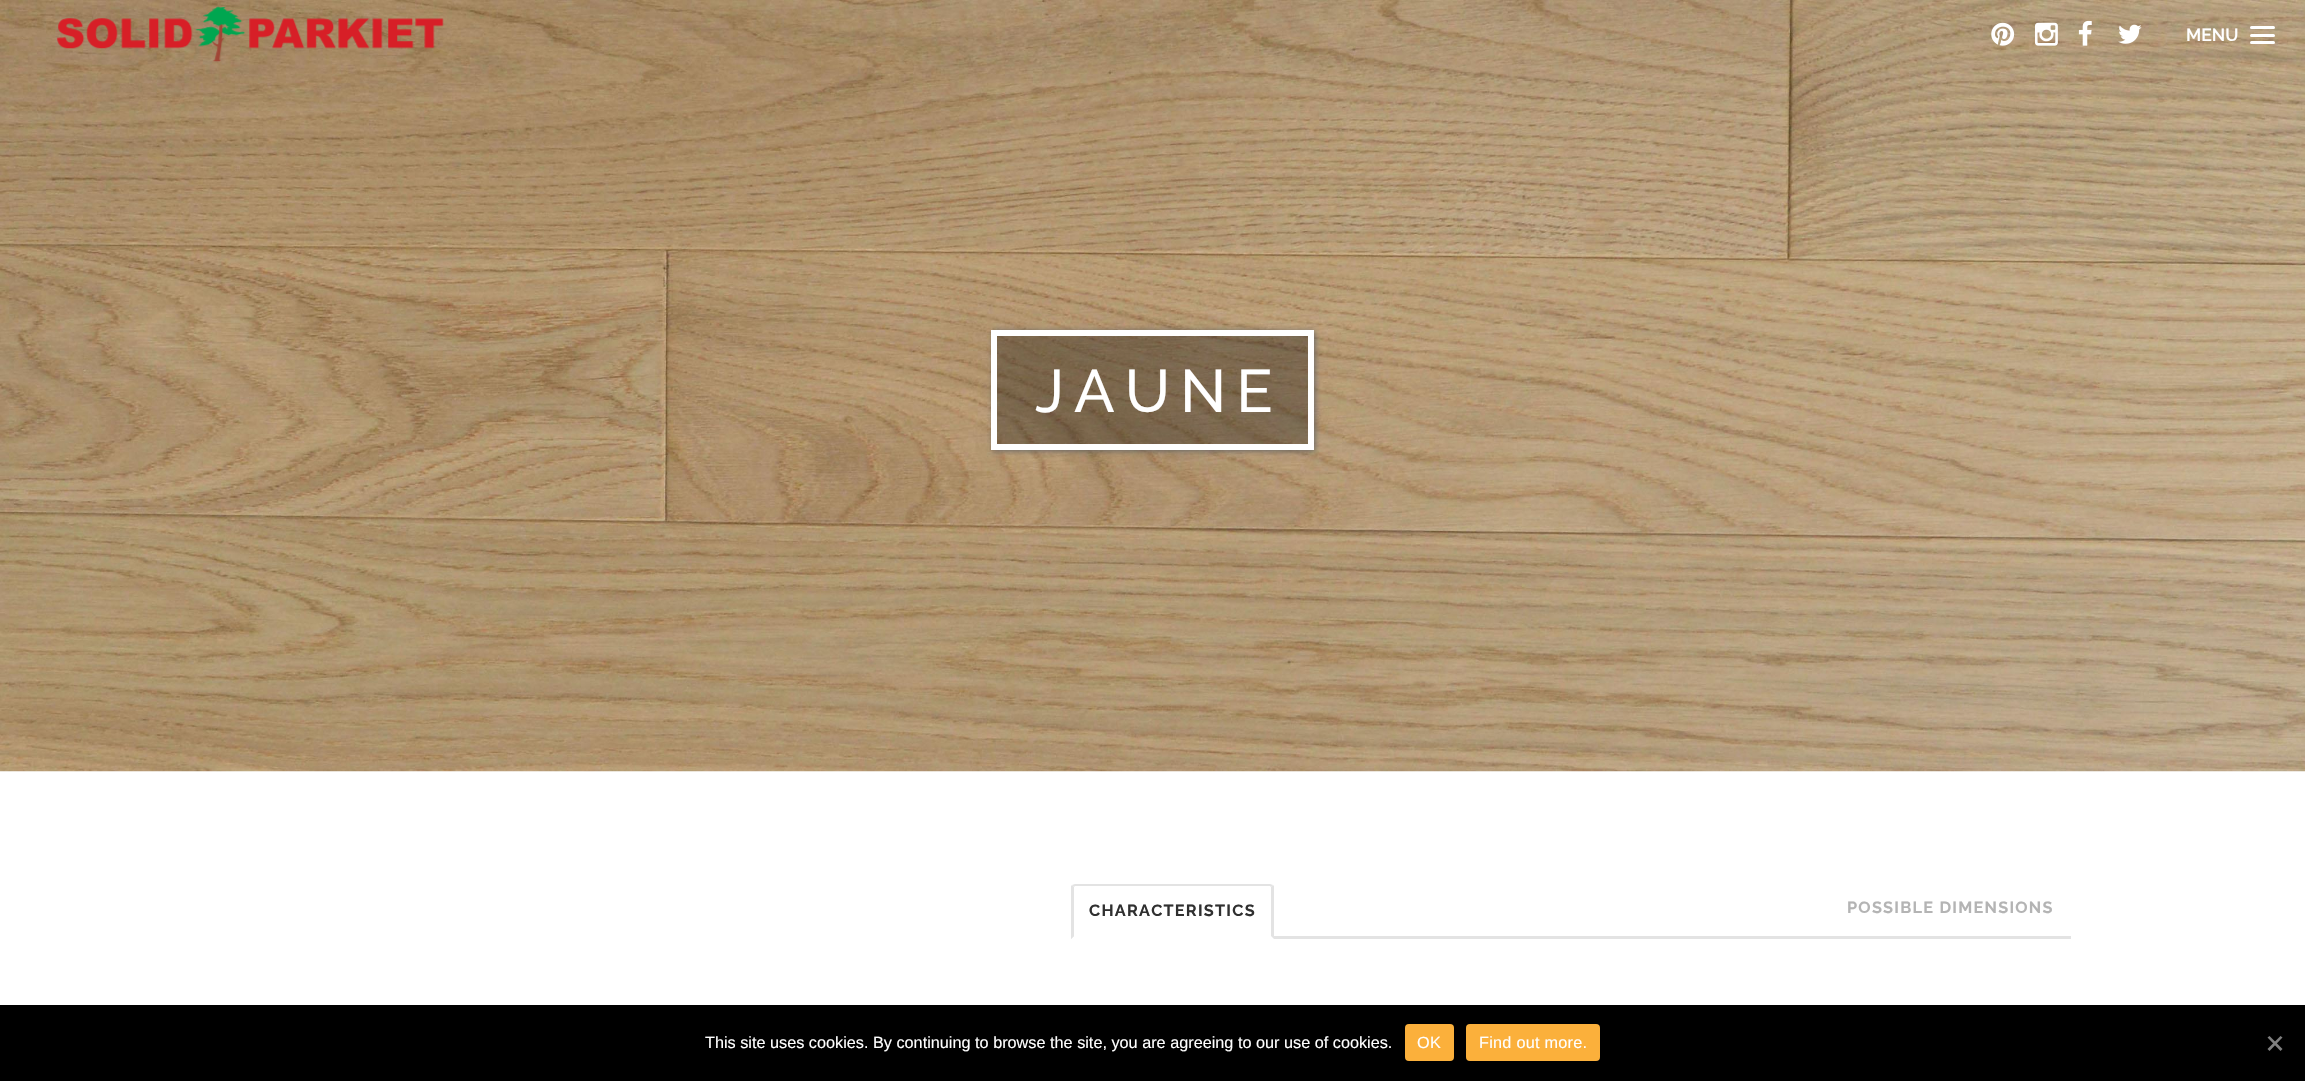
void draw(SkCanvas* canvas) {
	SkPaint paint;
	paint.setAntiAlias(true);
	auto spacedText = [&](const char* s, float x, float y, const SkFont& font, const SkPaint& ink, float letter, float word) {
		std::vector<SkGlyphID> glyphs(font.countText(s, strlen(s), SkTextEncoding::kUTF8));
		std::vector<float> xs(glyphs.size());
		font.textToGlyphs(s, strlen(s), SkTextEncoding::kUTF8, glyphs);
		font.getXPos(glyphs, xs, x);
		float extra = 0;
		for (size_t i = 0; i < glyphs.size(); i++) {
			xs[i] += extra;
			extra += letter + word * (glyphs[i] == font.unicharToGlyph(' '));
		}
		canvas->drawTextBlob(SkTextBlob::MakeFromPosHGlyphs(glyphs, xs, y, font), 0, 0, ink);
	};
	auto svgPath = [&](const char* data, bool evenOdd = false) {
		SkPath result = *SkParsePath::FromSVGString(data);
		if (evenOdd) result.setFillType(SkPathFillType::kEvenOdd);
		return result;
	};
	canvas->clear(0xffffffff);
	canvas->drawImageRect(SkImages::DeferredFromEncodedData(SkData::MakeFromFileName("img6.png")), SkRect::MakeXYWH(0, 0, 2305, 772), SkSamplingOptions());
	canvas->drawImageRect(SkImages::DeferredFromEncodedData(SkData::MakeFromFileName("img1.png")), SkRect::MakeXYWH(56, 6, 388, 56), SkSamplingOptions());
	canvas->drawImageRect(SkImages::DeferredFromEncodedData(SkData::MakeFromFileName("img2.png")), SkRect::MakeXYWH(1991, 22, 24, 24), SkSamplingOptions());
	canvas->drawImageRect(SkImages::DeferredFromEncodedData(SkData::MakeFromFileName("img3.png")), SkRect::MakeXYWH(2035, 22, 23, 24), SkSamplingOptions());
	canvas->drawImageRect(SkImages::DeferredFromEncodedData(SkData::MakeFromFileName("img4.png")), SkRect::MakeXYWH(2078, 20, 14, 26), SkSamplingOptions());
	canvas->drawImageRect(SkImages::DeferredFromEncodedData(SkData::MakeFromFileName("img5.png")), SkRect::MakeXYWH(2118, 24, 24, 20), SkSamplingOptions());
	SkFont f1(fontMgr->matchFamilyStyle("Raleway", SkFontStyle(600, SkFontStyle::kNormal_Width, SkFontStyle::kUpright_Slant)), 17.5);
	f1.setSubpixel(true);
	paint.setColor(0xffffffff);
	canvas->drawString("MENU", 2186, 41, f1, paint);
	canvas->drawRoundRect(SkRect::MakeXYWH(2250, 34, 25, 3), 1.5, 1.5, paint);
	canvas->drawRoundRect(SkRect::MakeXYWH(2250, 26, 25, 3), 1.5, 1.5, paint);
	canvas->drawRoundRect(SkRect::MakeXYWH(2250, 41, 25, 3), 1.5, 1.5, paint);
	canvas->save();
	canvas->clipPath(svgPath("M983 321H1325V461H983ZM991 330H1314V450H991Z", true), true);
	paint.setColor(0xff666666);
	paint.setMaskFilter(SkMaskFilter::MakeBlur(kNormal_SkBlurStyle, 3));
	canvas->drawRect(SkRect::MakeXYWH(993, 331, 322, 120), paint);
	paint.setMaskFilter(nullptr);
	canvas->restore();
	paint.setColor(0x4d000000);
	canvas->drawRect(SkRect::MakeXYWH(994, 333, 317, 114), paint);
	paint.setStroke(true);
	paint.setStrokeWidth(6);
	paint.setColor(0xffffffff);
	canvas->drawRect(SkRect::MakeXYWH(994, 333, 317, 114), paint);
	SkFont f2(fontMgr->matchFamilyStyle("Raleway", SkFontStyle(500, SkFontStyle::kNormal_Width, SkFontStyle::kUpright_Slant)), 60);
	f2.setSubpixel(true);
	paint.setStroke(false);
	spacedText("JAUNE", 1035, 412, f2, paint, 10, 0);
	paint.setColor(0xffe3e3e3);
	canvas->drawPath(svgPath("M1075 884L1072 885L1074 887L1075 886H1270L1271 887L1273 885L1270 884Z"), paint);
	canvas->drawRect(SkRect::MakeXYWH(1071, 936, 1000, 3), paint);
	canvas->drawPath(svgPath("M1273 885L1274 886V939L1271 936V887Z"), paint);
	paint.setColor(0xffffffff);
	canvas->drawPath(svgPath("M1274 939L1271 936H1074L1071 939Z"), paint);
	paint.setColor(0xffe3e3e3);
	canvas->drawPath(svgPath("M1071 939L1074 936V887L1072 885L1071 886Z"), paint);
	SkFont f3(fontMgr->matchFamilyStyle("Raleway", SkFontStyle::Bold()), 16.25);
	f3.setSubpixel(true);
	paint.setColor(0xff303030);
	spacedText("CHARACTERISTICS", 1089, 916, f3, paint, 1.25, 0);
	paint.setColor(0xffb4b4b4);
	spacedText("POSSIBLE DIMENSIONS", 1847, 913, f3, paint, 1.25, 0);
	paint.setColor(0xff000000);
	canvas->drawRect(SkRect::MakeXYWH(0, 1005, 2305, 76), paint);
	SkFont f4(fontMgr->matchFamilyStyle("Liberation Sans", SkFontStyle::Normal()), 16.25);
	f4.setSubpixel(true);
	paint.setColor(0xffffffff);
	canvas->drawString("This site uses cookies. By continuing to browse the site, you are agreeing to our use of cookies.", 705, 1048, f4, paint);
	paint.setColor(0xfffbb03b);
	canvas->drawRoundRect(SkRect::MakeXYWH(1405, 1024, 49, 37), 4, 4, paint);
	paint.setColor(0xffffffff);
	spacedText("OK", 1417, 1048, f4, paint, 0.25, 0);
	paint.setColor(0xfffbb03b);
	canvas->drawRoundRect(SkRect::MakeXYWH(1466, 1024, 134, 37), 4, 4, paint);
	paint.setColor(0xffffffff);
	spacedText("Find out more.", 1479, 1048, f4, paint, 0.25, 0);
	paint.setColor(0xff808080);
	canvas->drawPath(svgPath("M2280.5 1036L2282.5 1037.5L2269.5 1051L2267.5 1049Z"), paint);
	canvas->drawPath(svgPath("M2267.5 1037.5L2269.5 1036L2282.5 1049L2280.5 1051Z"), paint);
}
